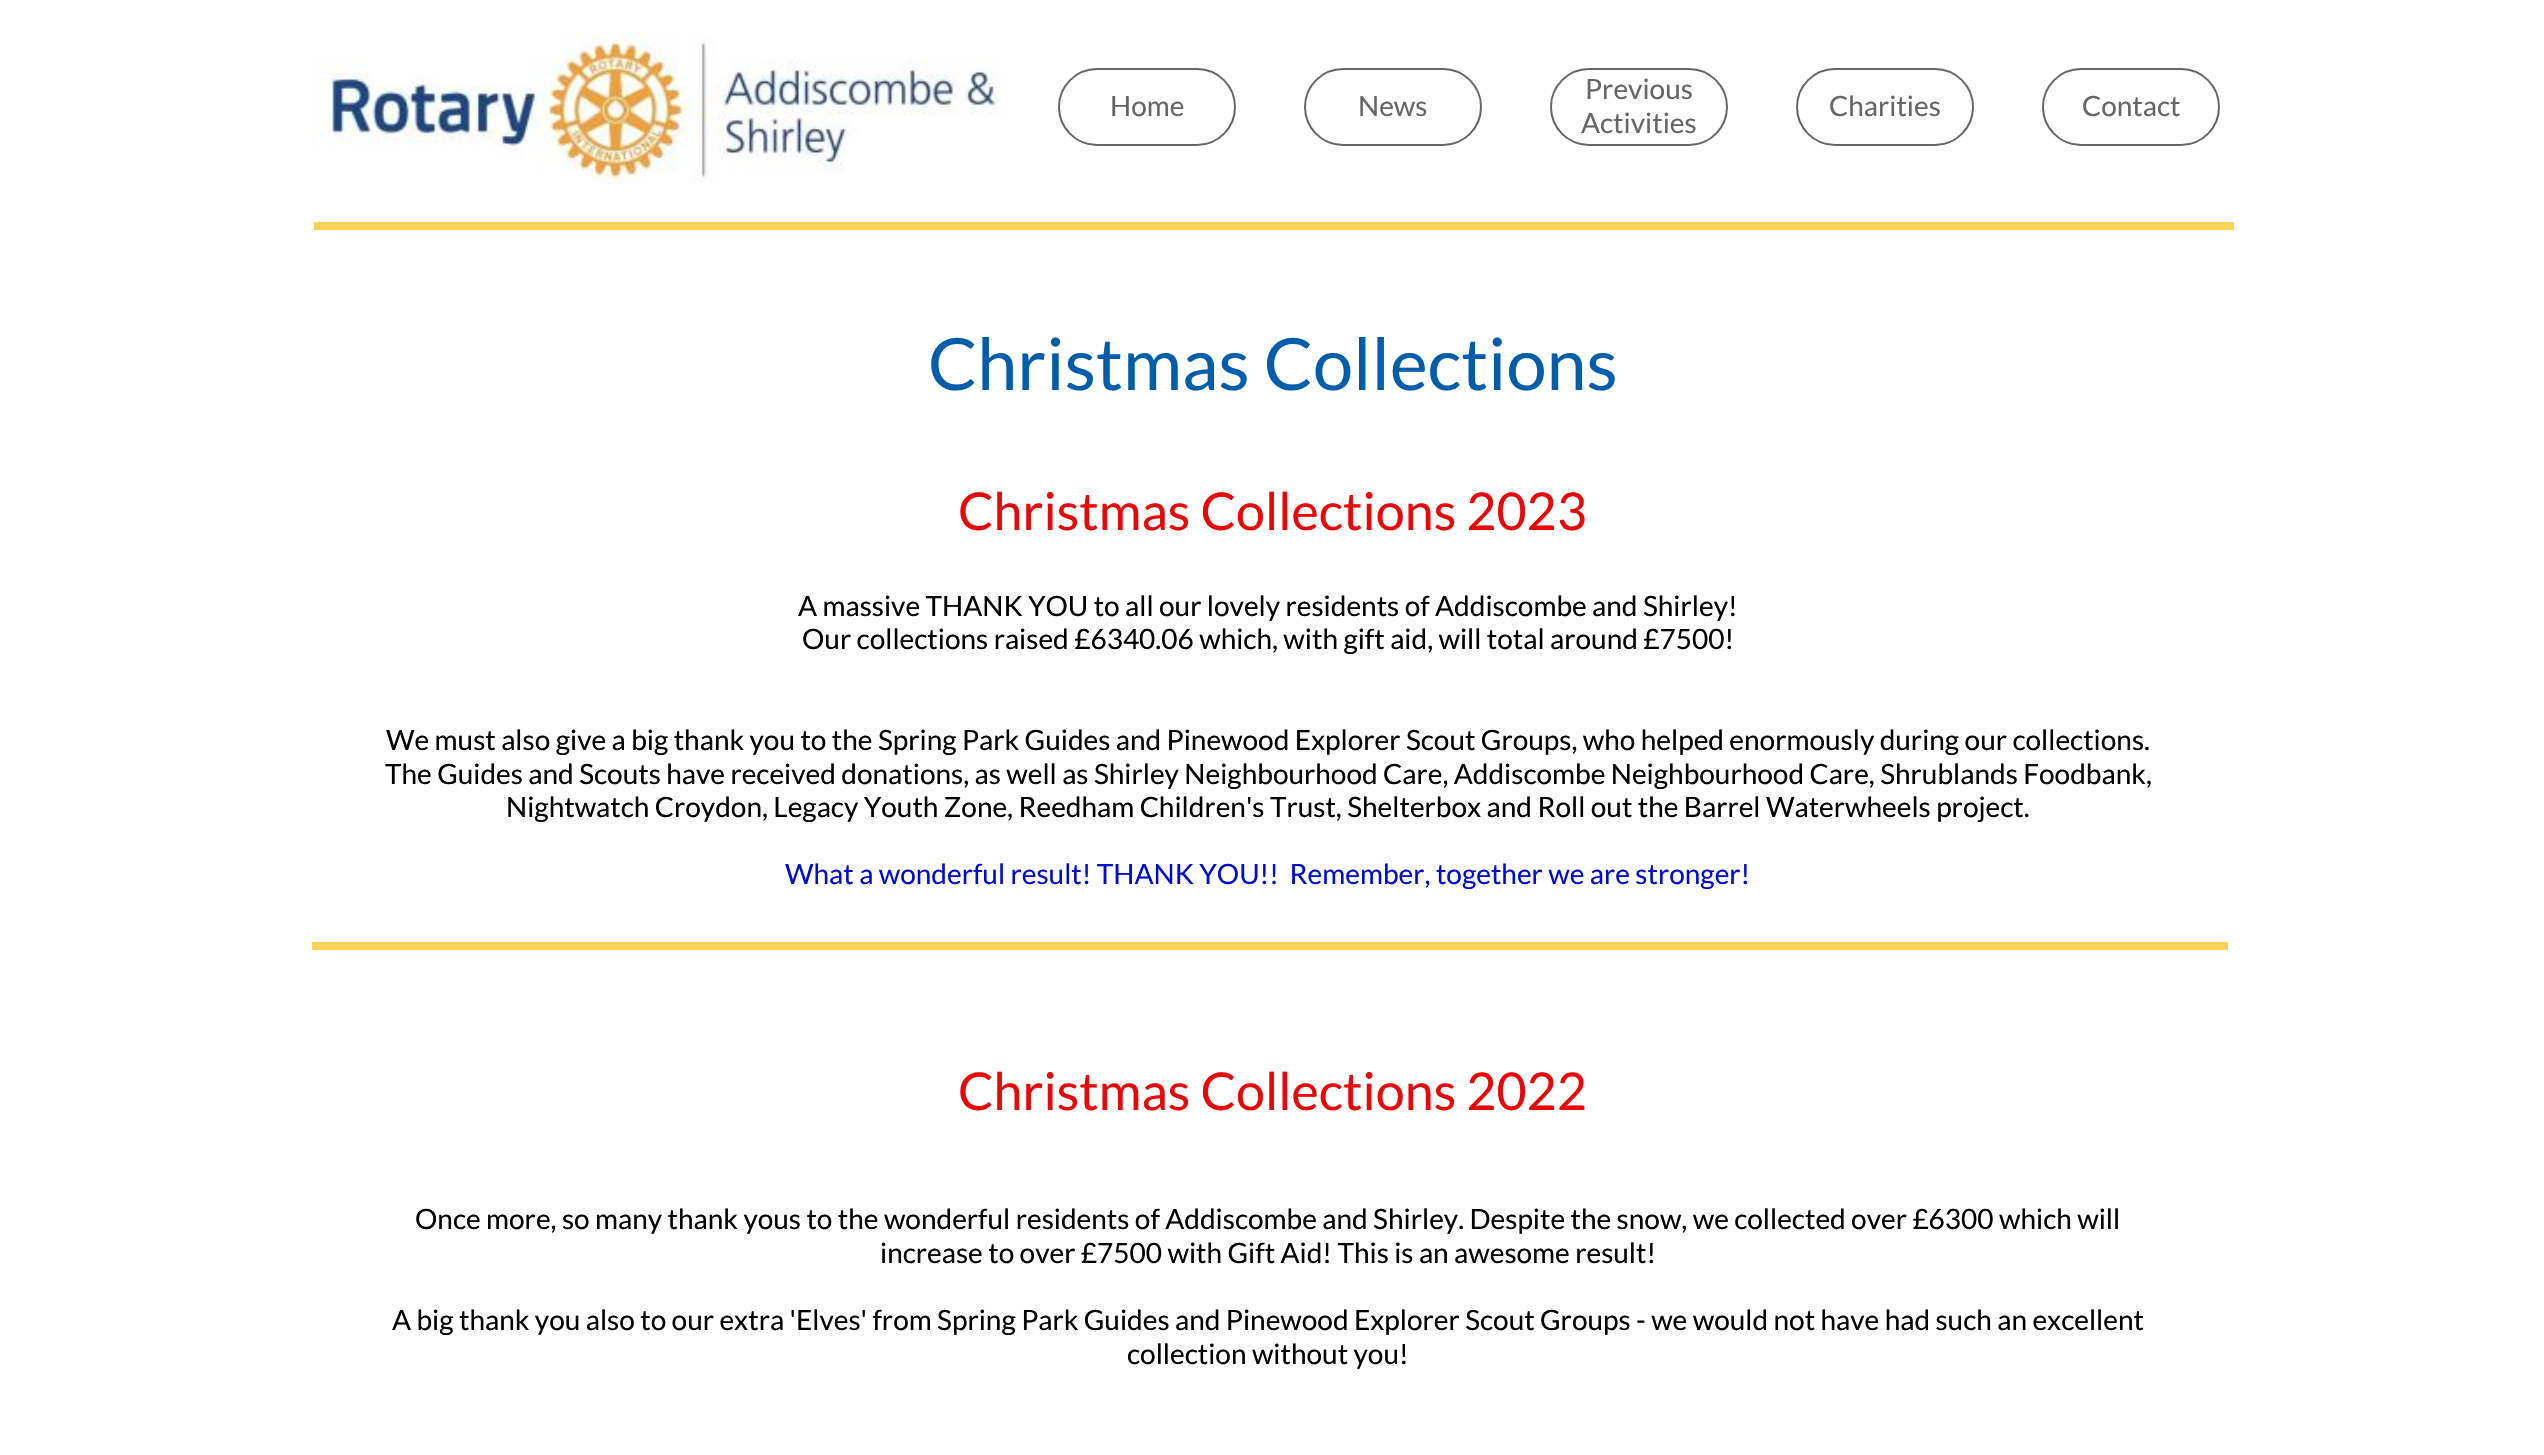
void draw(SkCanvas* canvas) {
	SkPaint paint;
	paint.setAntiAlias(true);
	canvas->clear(0xffffffff);
	canvas->drawImageRect(SkImages::DeferredFromEncodedData(SkData::MakeFromFileName("img1.png")), SkRect::MakeXYWH(312, 32, 690, 152), SkSamplingOptions());
	paint.setStroke(true);
	paint.setStrokeWidth(2);
	paint.setColor(0xff666666);
	canvas->drawRoundRect(SkRect::MakeXYWH(1059, 69, 176, 76), 38, 38, paint);
	SkFont f1(fontMgr->matchFamilyStyle("Lato", SkFontStyle::Normal()), 28);
	f1.setSubpixel(true);
	paint.setStroke(false);
	canvas->drawString("Home", 1110, 116, f1, paint);
	paint.setStroke(true);
	canvas->drawRoundRect(SkRect::MakeXYWH(1305, 69, 176, 76), 38, 38, paint);
	paint.setStroke(false);
	canvas->drawString("News", 1358, 116, f1, paint);
	paint.setStroke(true);
	canvas->drawRoundRect(SkRect::MakeXYWH(1551, 69, 176, 76), 38, 38, paint);
	paint.setStroke(false);
	canvas->drawString("Previous", 1585, 99, f1, paint);
	canvas->drawString("Activities", 1581, 133, f1, paint);
	paint.setStroke(true);
	canvas->drawRoundRect(SkRect::MakeXYWH(1797, 69, 176, 76), 38, 38, paint);
	paint.setStroke(false);
	canvas->drawString("Charities", 1829, 116, f1, paint);
	paint.setStroke(true);
	canvas->drawRoundRect(SkRect::MakeXYWH(2043, 69, 176, 76), 38, 38, paint);
	paint.setStroke(false);
	canvas->drawString("Contact", 2082, 116, f1, paint);
	paint.setColor(0xfffbd358);
	canvas->drawRect(SkRect::MakeXYWH(314, 222, 1920, 8), paint);
	SkFont f2(fontMgr->matchFamilyStyle("Lato", SkFontStyle::Normal()), 72);
	f2.setSubpixel(true);
	paint.setColor(0xff005daa);
	canvas->drawString("Christmas Collections", 928, 390, f2, paint);
	SkFont f3(fontMgr->matchFamilyStyle("Lato", SkFontStyle::Normal()), 52);
	f3.setSubpixel(true);
	paint.setColor(0xffea0707);
	canvas->drawString("Christmas Collections 2023", 958, 530, f3, paint);
	paint.setColor(0xff000000);
	canvas->drawString("A massive THANK YOU to all our lovely residents of Addiscombe and Shirley!", 798, 616, f1, paint);
	canvas->drawString("Our collections raised £6340.06 which, with gift aid, will total around £7500!", 802, 649, f1, paint);
	canvas->drawString("We must also give a big thank you to the Spring Park Guides and Pinewood Explorer Scout Groups, who helped enormously during our collections.", 386, 750, f1, paint);
	canvas->drawString("The Guides and Scouts have received donations, as well as Shirley Neighbourhood Care, Addiscombe Neighbourhood Care, Shrublands Foodbank,", 385, 784, f1, paint);
	canvas->drawString("Nightwatch Croydon, Legacy Youth Zone, Reedham Children's Trust, Shelterbox and Roll out the Barrel Waterwheels project.", 506, 817, f1, paint);
	paint.setColor(0xff000bd8);
	canvas->drawString("What a wonderful result! THANK YOU!!  Remember, together we are stronger!", 785, 884, f1, paint);
	paint.setColor(0xfffbd358);
	canvas->drawRect(SkRect::MakeXYWH(312, 942, 1916, 8), paint);
	paint.setColor(0xffea0707);
	canvas->drawString("Christmas Collections 2022", 958, 1110, f3, paint);
	paint.setColor(0xff000000);
	canvas->drawString("Once more, so many thank yous to the wonderful residents of Addiscombe and Shirley. Despite the snow, we collected over £6300 which will", 415, 1229, f1, paint);
	canvas->drawString("increase to over £7500 with Gift Aid! This is an awesome result!", 880, 1263, f1, paint);
	canvas->drawString("A big thank you also to our extra 'Elves' from Spring Park Guides and Pinewood Explorer Scout Groups - we would not have had such an excellent", 392, 1330, f1, paint);
	canvas->drawString("collection without you!", 1127, 1364, f1, paint);
}
